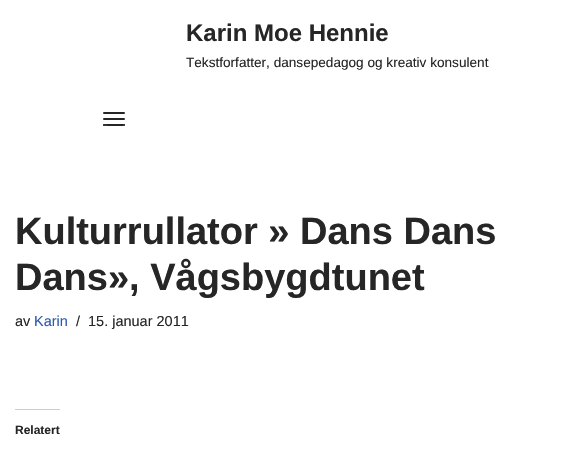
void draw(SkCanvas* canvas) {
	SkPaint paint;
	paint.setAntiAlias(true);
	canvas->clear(0xffffffff);
	SkFont f1(fontMgr->matchFamilyStyle("Liberation Sans", SkFontStyle::Bold()), 24);
	f1.setSubpixel(true);
	paint.setColor(0xff272626);
	canvas->drawString("Karin Moe Hennie", 186, 41, f1, paint);
	SkFont f2(fontMgr->matchFamilyStyle("Liberation Sans", SkFontStyle::Normal()), 13.6);
	f2.setSubpixel(true);
	canvas->drawString("Tekstforfatter, dansepedagog og kreativ konsulent", 186, 67, f2, paint);
	canvas->drawRoundRect(SkRect::MakeXYWH(103, 112, 22, 2), 1, 1, paint);
	canvas->drawRoundRect(SkRect::MakeXYWH(103, 118, 22, 2), 1, 1, paint);
	canvas->drawRoundRect(SkRect::MakeXYWH(103, 124, 22, 2), 1, 1, paint);
	canvas->drawImageRect(SkImages::DeferredFromEncodedData(SkData::MakeFromFileName("img1.png")), SkRect::MakeXYWH(103, 124, 22, 2), SkSamplingOptions());
	SkFont f3(fontMgr->matchFamilyStyle("Liberation Sans", SkFontStyle::Bold()), 38);
	f3.setSubpixel(true);
	canvas->drawString("Kulturrullator » Dans Dans", 15, 244, f3, paint);
	canvas->drawString("Dans», Vågsbygdtunet", 15, 290, f3, paint);
	SkFont f4(fontMgr->matchFamilyStyle("Liberation Sans", SkFontStyle::Normal()), 14.5);
	f4.setSubpixel(true);
	canvas->drawString("av", 15, 326, f4, paint);
	paint.setColor(0xff2f5aae);
	canvas->drawString("Karin", 34, 326, f4, paint);
	paint.setColor(0xff272626);
	canvas->drawString("/", 76, 326, f4, paint);
	canvas->drawString("15. januar 2011", 88, 326, f4, paint);
	paint.setColor(0xffcccccc);
	canvas->drawRect(SkRect::MakeXYWH(15, 409, 45, 1), paint);
	SkFont f5(fontMgr->matchFamilyStyle("Liberation Sans", SkFontStyle::Bold()), 12);
	f5.setSubpixel(true);
	paint.setColor(0xff272626);
	canvas->drawString("Relatert", 15, 434, f5, paint);
}
